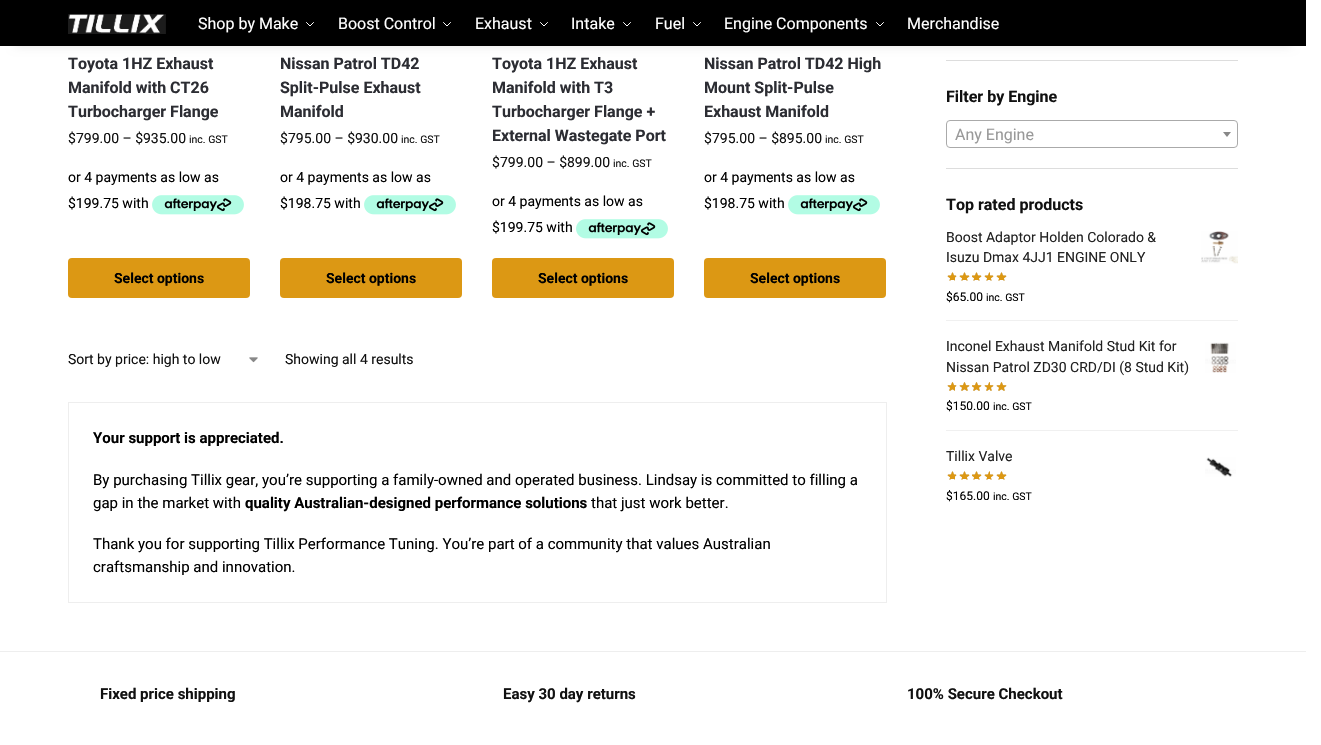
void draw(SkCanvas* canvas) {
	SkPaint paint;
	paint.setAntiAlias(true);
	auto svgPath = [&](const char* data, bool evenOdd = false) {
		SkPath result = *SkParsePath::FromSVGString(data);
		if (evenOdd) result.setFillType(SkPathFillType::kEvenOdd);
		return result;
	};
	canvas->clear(0xffffffff);
	paint.setColor(0xffdddddd);
	canvas->drawRect(SkRect::MakeXYWH(946, 60, 292, 1), paint);
	paint.setColor(0x1a000000);
	paint.setMaskFilter(SkMaskFilter::MakeBlur(kNormal_SkBlurStyle, 5));
	canvas->drawRect(SkRect::MakeXYWH(15, 30, 1276, 16), paint);
	paint.setMaskFilter(nullptr);
	paint.setColor(0xff000000);
	canvas->drawRect(SkRect::MakeXYWH(0, 0, 1306, 46), paint);
	canvas->drawImageRect(SkImages::DeferredFromEncodedData(SkData::MakeFromFileName("img1.png")), SkRect::MakeXYWH(68, 14, 98, 20), SkSamplingOptions());
	SkFont f1(fontMgr->matchFamilyStyle("Roboto", SkFontStyle::Normal()), 16);
	f1.setSubpixel(true);
	paint.setColor(0xffffffff);
	canvas->drawString("Shop by Make", 198, 29, f1, paint);
	paint.setStroke(true);
	paint.setStrokeWidth(1);
	paint.setStrokeCap(SkPaint::kRound_Cap);
	paint.setStrokeJoin(SkPaint::kRound_Join);
	canvas->drawPath(svgPath("M313.5 22.5L310 26L306.5 22.5"), paint);
	paint.setStroke(false);
	canvas->drawString("Boost Control", 338, 29, f1, paint);
	paint.setStroke(true);
	canvas->drawPath(svgPath("M450.5 22.5L447 26L443.5 22.5"), paint);
	paint.setStroke(false);
	canvas->drawString("Exhaust", 475, 29, f1, paint);
	paint.setStroke(true);
	canvas->drawPath(svgPath("M547.5 22.5L544 26L540.5 22.5"), paint);
	paint.setStroke(false);
	canvas->drawString("Intake", 571, 29, f1, paint);
	paint.setStroke(true);
	canvas->drawPath(svgPath("M630.5 22.5L627 26L623.5 22.5"), paint);
	paint.setStroke(false);
	canvas->drawString("Fuel", 655, 29, f1, paint);
	paint.setStroke(true);
	canvas->drawPath(svgPath("M700.5 22.5L697 26L693.5 22.5"), paint);
	paint.setStroke(false);
	canvas->drawString("Engine Components", 724, 29, f1, paint);
	paint.setStroke(true);
	canvas->drawPath(svgPath("M883.5 22.5L880 26L876.5 22.5"), paint);
	paint.setStroke(false);
	canvas->drawString("Merchandise", 907, 29, f1, paint);
	SkFont f2(fontMgr->matchFamilyStyle("Roboto", SkFontStyle::Bold()), 16);
	f2.setSubpixel(true);
	paint.setColor(0xff2c2d33);
	canvas->drawString("Toyota 1HZ Exhaust", 68, 69, f2, paint);
	canvas->drawString("Manifold with CT26", 68, 93, f2, paint);
	canvas->drawString("Turbocharger Flange", 68, 117, f2, paint);
	SkFont f3(fontMgr->matchFamilyStyle("Roboto", SkFontStyle::Normal()), 14);
	f3.setSubpixel(true);
	paint.setColor(0xff111111);
	canvas->drawString("$", 68, 143, f3, paint);
	canvas->drawString("799.00 – $", 76, 143, f3, paint);
	canvas->drawString("935.00", 143, 143, f3, paint);
	SkFont f4(fontMgr->matchFamilyStyle("Roboto", SkFontStyle::Normal()), 10.5);
	f4.setSubpixel(true);
	canvas->drawString("inc. GST", 189, 143, f4, paint);
	paint.setColor(0xff000000);
	canvas->drawString("or 4 payments as low as", 68, 182, f3, paint);
	canvas->drawString("$199.75 with", 68, 208, f3, paint);
	canvas->drawImageRect(SkImages::DeferredFromEncodedData(SkData::MakeFromFileName("img2.png")), SkRect::MakeXYWH(152, 195, 92, 20), SkSamplingOptions());
	paint.setColor(0xffdc9814);
	canvas->drawRoundRect(SkRect::MakeXYWH(68, 258, 182, 40), 4, 4, paint);
	SkFont f5(fontMgr->matchFamilyStyle("Roboto", SkFontStyle::Bold()), 14);
	f5.setSubpixel(true);
	paint.setColor(0xff000000);
	canvas->drawString("Select options", 114, 283, f5, paint);
	paint.setColor(0xff2c2d33);
	canvas->drawString("Nissan Patrol TD42", 280, 69, f2, paint);
	canvas->drawString("Split-Pulse Exhaust", 280, 93, f2, paint);
	canvas->drawString("Manifold", 280, 117, f2, paint);
	paint.setColor(0xff111111);
	canvas->drawString("$", 280, 143, f3, paint);
	canvas->drawString("795.00 – $", 288, 143, f3, paint);
	canvas->drawString("930.00", 355, 143, f3, paint);
	canvas->drawString("inc. GST", 401, 143, f4, paint);
	paint.setColor(0xff000000);
	canvas->drawString("or 4 payments as low as", 280, 182, f3, paint);
	canvas->drawString("$198.75 with", 280, 208, f3, paint);
	canvas->drawImageRect(SkImages::DeferredFromEncodedData(SkData::MakeFromFileName("img2.png")), SkRect::MakeXYWH(364, 195, 92, 20), SkSamplingOptions());
	paint.setColor(0xffdc9814);
	canvas->drawRoundRect(SkRect::MakeXYWH(280, 258, 182, 40), 4, 4, paint);
	paint.setColor(0xff000000);
	canvas->drawString("Select options", 326, 283, f5, paint);
	paint.setColor(0xff2c2d33);
	canvas->drawString("Toyota 1HZ Exhaust", 492, 69, f2, paint);
	canvas->drawString("Manifold with T3", 492, 93, f2, paint);
	canvas->drawString("Turbocharger Flange +", 492, 117, f2, paint);
	canvas->drawString("External Wastegate Port", 492, 141, f2, paint);
	paint.setColor(0xff111111);
	canvas->drawString("$", 492, 167, f3, paint);
	canvas->drawString("799.00 – $", 500, 167, f3, paint);
	canvas->drawString("899.00", 567, 167, f3, paint);
	canvas->drawString("inc. GST", 613, 167, f4, paint);
	paint.setColor(0xff000000);
	canvas->drawString("or 4 payments as low as", 492, 206, f3, paint);
	canvas->drawString("$199.75 with", 492, 232, f3, paint);
	canvas->drawImageRect(SkImages::DeferredFromEncodedData(SkData::MakeFromFileName("img2.png")), SkRect::MakeXYWH(576, 219, 92, 20), SkSamplingOptions());
	paint.setColor(0xffdc9814);
	canvas->drawRoundRect(SkRect::MakeXYWH(492, 258, 182, 40), 4, 4, paint);
	paint.setColor(0xff000000);
	canvas->drawString("Select options", 538, 283, f5, paint);
	paint.setColor(0xff2c2d33);
	canvas->drawString("Nissan Patrol TD42 High", 704, 69, f2, paint);
	canvas->drawString("Mount Split-Pulse", 704, 93, f2, paint);
	canvas->drawString("Exhaust Manifold", 704, 117, f2, paint);
	paint.setColor(0xff111111);
	canvas->drawString("$", 704, 143, f3, paint);
	canvas->drawString("795.00 – $", 712, 143, f3, paint);
	canvas->drawString("895.00", 779, 143, f3, paint);
	canvas->drawString("inc. GST", 825, 143, f4, paint);
	paint.setColor(0xff000000);
	canvas->drawString("or 4 payments as low as", 704, 182, f3, paint);
	canvas->drawString("$198.75 with", 704, 208, f3, paint);
	canvas->drawImageRect(SkImages::DeferredFromEncodedData(SkData::MakeFromFileName("img2.png")), SkRect::MakeXYWH(788, 195, 92, 20), SkSamplingOptions());
	paint.setColor(0xffdc9814);
	canvas->drawRoundRect(SkRect::MakeXYWH(704, 258, 182, 40), 4, 4, paint);
	paint.setColor(0xff000000);
	canvas->drawString("Select options", 750, 283, f5, paint);
	canvas->drawImageRect(SkImages::DeferredFromEncodedData(SkData::MakeFromFileName("img3.png")), SkRect::MakeXYWH(249, 357, 9, 6), SkSamplingOptions());
	paint.setColor(0xff111111);
	canvas->drawString("Sort by price: high to low", 68, 364, f3, paint);
	canvas->drawString("Showing all 4 results", 285, 364, f3, paint);
	paint.setStroke(true);
	paint.setStrokeCap(SkPaint::kButt_Cap);
	paint.setStrokeJoin(SkPaint::kMiter_Join);
	paint.setColor(0xffeeeeee);
	canvas->drawRect(SkRect::MakeXYWH(68.5, 402.5, 818, 200), paint);
	SkFont f6(fontMgr->matchFamilyStyle("Roboto", SkFontStyle::Bold()), 15);
	f6.setSubpixel(true);
	paint.setStroke(false);
	paint.setColor(0xff000000);
	canvas->drawString("Your support is appreciated.", 93, 443, f6, paint);
	SkFont f7(fontMgr->matchFamilyStyle("Roboto", SkFontStyle::Normal()), 15);
	f7.setSubpixel(true);
	canvas->drawString("By purchasing Tillix gear, you’re supporting a family-owned and operated business. Lindsay is committed to filling a", 93, 485, f7, paint);
	canvas->drawString("gap in the market with", 93, 508, f7, paint);
	canvas->drawString("quality Australian-designed performance solutions", 245, 508, f6, paint);
	canvas->drawString("that just work better.", 591, 508, f7, paint);
	canvas->drawString("Thank you for supporting Tillix Performance Tuning. You’re part of a community that values Australian", 93, 549, f7, paint);
	canvas->drawString("craftsmanship and innovation.", 93, 572, f7, paint);
	paint.setColor(0xffdddddd);
	canvas->drawRect(SkRect::MakeXYWH(946, 168, 292, 1), paint);
	paint.setColor(0xff111111);
	canvas->drawString("Filter by Engine", 946, 102, f2, paint);
	paint.setStroke(true);
	paint.setColor(0xffaaaaaa);
	canvas->drawRoundRect(SkRect::MakeXYWH(946.5, 120.5, 291, 27), 3.5, 3.5, paint);
	paint.setStroke(false);
	paint.setColor(0xff999999);
	canvas->drawString("Any Engine", 955, 140, f1, paint);
	paint.setColor(0xff888888);
	canvas->drawPath(svgPath("M1223 132H1231L1227 137Z"), paint);
	paint.setColor(0xff111111);
	canvas->drawString("Top rated products", 946, 210, f2, paint);
	paint.setColor(0xfff0f0f0);
	canvas->drawRect(SkRect::MakeXYWH(946, 320, 292, 1), paint);
	paint.setColor(0xff222222);
	canvas->drawString("Boost Adaptor Holden Colorado &", 946, 242, f3, paint);
	canvas->drawImageRect(SkImages::DeferredFromEncodedData(SkData::MakeFromFileName("img4.png")), SkRect::MakeXYWH(1201, 231, 37, 33), SkSamplingOptions());
	canvas->drawString("Isuzu Dmax 4JJ1 ENGINE ONLY", 946, 262, f3, paint);
	canvas->drawImageRect(SkImages::DeferredFromEncodedData(SkData::MakeFromFileName("img5.png")), SkRect::MakeXYWH(947, 272, 60, 9), SkSamplingOptions());
	canvas->drawImageRect(SkImages::DeferredFromEncodedData(SkData::MakeFromFileName("img6.png")), SkRect::MakeXYWH(947, 272, 60, 9), SkSamplingOptions());
	SkFont f8(fontMgr->matchFamilyStyle("Roboto", SkFontStyle::Normal()), 12);
	f8.setSubpixel(true);
	paint.setColor(0xff000000);
	canvas->drawString("$65.00", 946, 301, f8, paint);
	canvas->drawString("inc. GST", 986, 301, f4, paint);
	paint.setColor(0xfff0f0f0);
	canvas->drawRect(SkRect::MakeXYWH(946, 430, 292, 1), paint);
	paint.setColor(0xff222222);
	canvas->drawString("Inconel Exhaust Manifold Stud Kit for", 946, 351, f3, paint);
	canvas->drawImageRect(SkImages::DeferredFromEncodedData(SkData::MakeFromFileName("img7.png")), SkRect::MakeXYWH(1205, 342, 31, 31), SkSamplingOptions());
	canvas->drawString("Nissan Patrol ZD30 CRD/DI (8 Stud Kit)", 946, 372, f3, paint);
	canvas->drawImageRect(SkImages::DeferredFromEncodedData(SkData::MakeFromFileName("img8.png")), SkRect::MakeXYWH(947, 382, 60, 9), SkSamplingOptions());
	canvas->drawImageRect(SkImages::DeferredFromEncodedData(SkData::MakeFromFileName("img9.png")), SkRect::MakeXYWH(947, 382, 60, 9), SkSamplingOptions());
	paint.setColor(0xff000000);
	canvas->drawString("$150.00", 946, 410, f8, paint);
	canvas->drawString("inc. GST", 993, 410, f4, paint);
	paint.setColor(0xff222222);
	canvas->drawString("Tillix Valve", 946, 461, f3, paint);
	canvas->drawImageRect(SkImages::DeferredFromEncodedData(SkData::MakeFromFileName("img10.png")), SkRect::MakeXYWH(1205, 457, 31, 20), SkSamplingOptions());
	canvas->drawImageRect(SkImages::DeferredFromEncodedData(SkData::MakeFromFileName("img5.png")), SkRect::MakeXYWH(947, 471, 60, 9), SkSamplingOptions());
	canvas->drawImageRect(SkImages::DeferredFromEncodedData(SkData::MakeFromFileName("img6.png")), SkRect::MakeXYWH(947, 471, 60, 9), SkSamplingOptions());
	paint.setColor(0xff000000);
	canvas->drawString("$165.00", 946, 500, f8, paint);
	canvas->drawString("inc. GST", 993, 500, f4, paint);
	paint.setColor(0xffeeeeee);
	canvas->drawRect(SkRect::MakeXYWH(0, 651, 1306, 1), paint);
	paint.setColor(0xff111111);
	canvas->drawString("Fixed price shipping", 100, 699, f6, paint);
	canvas->drawString("Easy 30 day returns", 503, 699, f6, paint);
	canvas->drawString("100% Secure Checkout", 907, 699, f6, paint);
}
